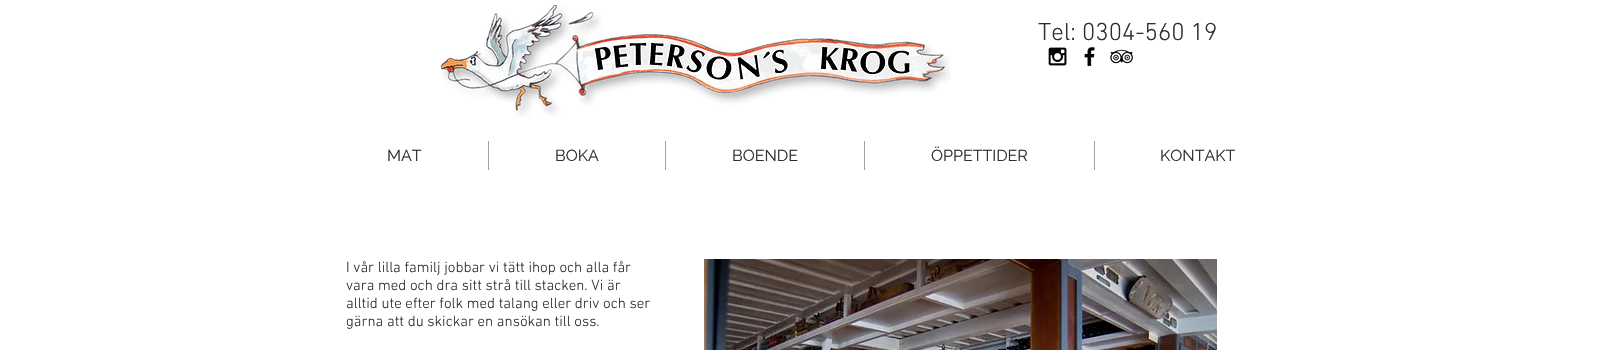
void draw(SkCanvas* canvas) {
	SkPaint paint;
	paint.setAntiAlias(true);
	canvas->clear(0xffffffff);
	canvas->drawImageRect(SkImages::DeferredFromEncodedData(SkData::MakeFromFileName("img1.png")), SkRect::MakeXYWH(440, 5, 511, 112), SkSamplingOptions());
	SkFont f1(fontMgr->matchFamilyStyle("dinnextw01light", SkFontStyle(300, SkFontStyle::kNormal_Width, SkFontStyle::kUpright_Slant)), 25);
	f1.setSubpixel(true);
	paint.setColor(0xff2f2e2e);
	canvas->drawString("Tel: 0304-560 19", 1038, 40, f1, paint);
	canvas->drawImageRect(SkImages::DeferredFromEncodedData(SkData::MakeFromFileName("img2.png")), SkRect::MakeXYWH(1048, 47, 19, 19), SkSamplingOptions());
	canvas->drawImageRect(SkImages::DeferredFromEncodedData(SkData::MakeFromFileName("img3.png")), SkRect::MakeXYWH(1084, 47, 11, 20), SkSamplingOptions());
	canvas->drawImageRect(SkImages::DeferredFromEncodedData(SkData::MakeFromFileName("img4.png")), SkRect::MakeXYWH(1110, 49, 23, 15), SkSamplingOptions());
	SkFont f2(fontMgr->matchFamilyStyle("Raleway", SkFontStyle::Normal()), 16);
	f2.setSubpixel(true);
	canvas->drawString("MAT", 387, 161, f2, paint);
	paint.setColor(0xffa0a09f);
	canvas->drawRect(SkRect::MakeXYWH(488, 141, 1, 29), paint);
	paint.setColor(0xff2f2e2e);
	canvas->drawString("BOKA", 555, 161, f2, paint);
	paint.setColor(0xffa0a09f);
	canvas->drawRect(SkRect::MakeXYWH(665, 141, 1, 29), paint);
	paint.setColor(0xff2f2e2e);
	canvas->drawString("BOENDE", 732, 161, f2, paint);
	paint.setColor(0xffa0a09f);
	canvas->drawRect(SkRect::MakeXYWH(864, 141, 1, 29), paint);
	paint.setColor(0xff2f2e2e);
	canvas->drawString("ÖPPETTIDER", 931, 161, f2, paint);
	paint.setColor(0xffa0a09f);
	canvas->drawRect(SkRect::MakeXYWH(1094, 141, 1, 29), paint);
	paint.setColor(0xff2f2e2e);
	canvas->drawString("KONTAKT", 1160, 161, f2, paint);
	SkFont f3(fontMgr->matchFamilyStyle("dinnextw01light", SkFontStyle(300, SkFontStyle::kNormal_Width, SkFontStyle::kUpright_Slant)), 15);
	f3.setSubpixel(true);
	canvas->drawString("I vår lilla familj jobbar vi tätt ihop och alla får", 346, 272, f3, paint);
	canvas->drawString("vara med och dra sitt strå till stacken. Vi är", 346, 290, f3, paint);
	canvas->drawString("alltid ute efter folk med talang eller driv och ser", 346, 308, f3, paint);
	canvas->drawString("gärna att du skickar en ansökan till oss.", 346, 326, f3, paint);
	canvas->drawImageRect(SkImages::DeferredFromEncodedData(SkData::MakeFromFileName("img5.png")), SkRect::MakeXYWH(704, 259, 513, 91), SkSamplingOptions());
}
